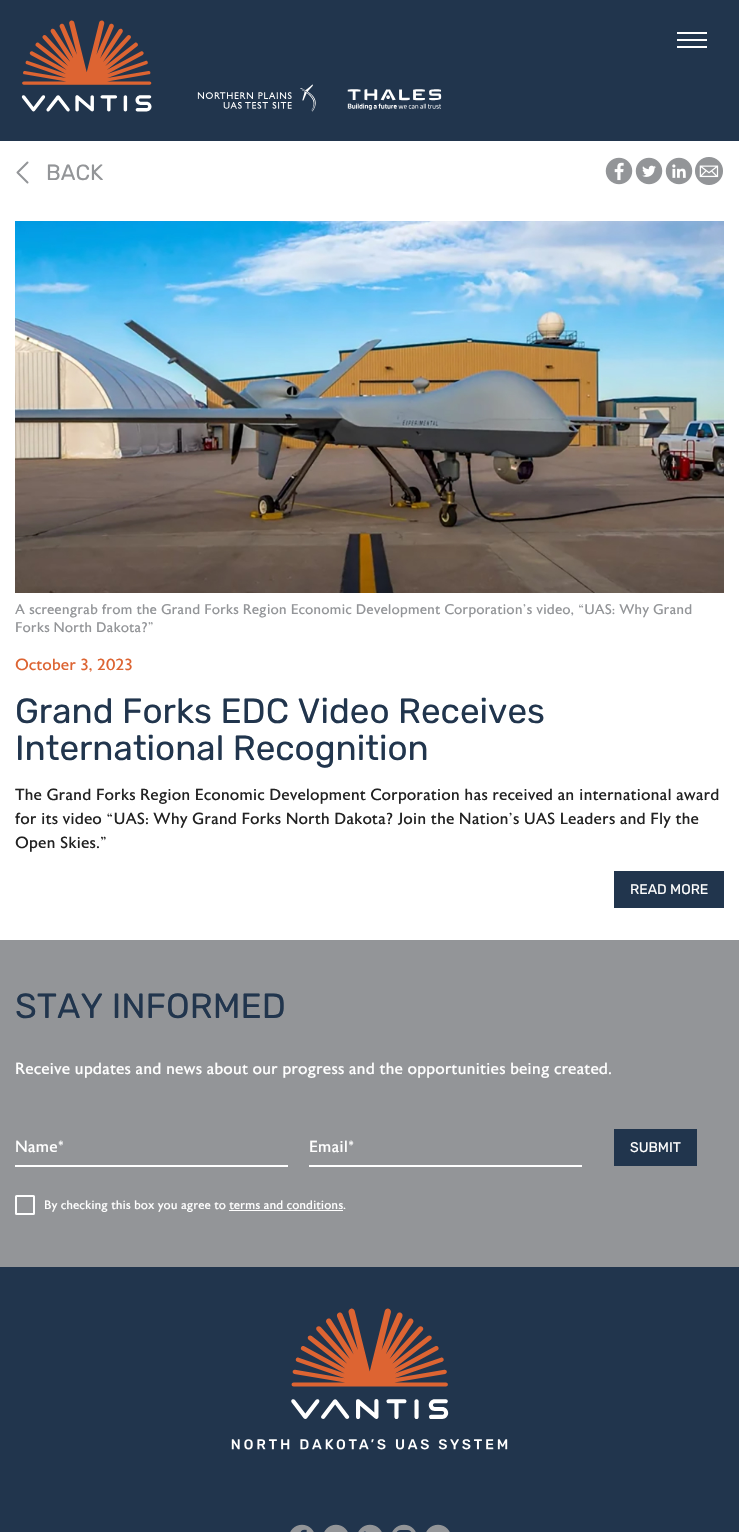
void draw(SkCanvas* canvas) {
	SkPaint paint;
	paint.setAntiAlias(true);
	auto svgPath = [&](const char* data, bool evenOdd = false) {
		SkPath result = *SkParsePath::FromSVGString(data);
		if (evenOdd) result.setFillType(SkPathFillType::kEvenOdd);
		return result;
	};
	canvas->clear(0xffffffff);
	paint.setColor(0xff21354d);
	canvas->drawRect(SkRect::MakeXYWH(0, 0, 739, 141), paint);
	canvas->drawImageRect(SkImages::DeferredFromEncodedData(SkData::MakeFromFileName("img1.png")), SkRect::MakeXYWH(21, 20, 421, 92), SkSamplingOptions());
	paint.setColor(0xffffffff);
	canvas->drawRect(SkRect::MakeXYWH(677, 39, 30, 2), paint);
	canvas->drawRect(SkRect::MakeXYWH(677, 32, 30, 2), paint);
	canvas->drawRect(SkRect::MakeXYWH(677, 46, 30, 2), paint);
	paint.setStroke(true);
	paint.setStrokeWidth(2);
	paint.setStrokeCap(SkPaint::kRound_Cap);
	paint.setStrokeJoin(SkPaint::kRound_Join);
	paint.setColor(0xff939598);
	canvas->drawPath(svgPath("M27.5 162.5L17.5 172.5L27.5 182.5"), paint);
	SkFont f1(fontMgr->matchFamilyStyle("Rubik", SkFontStyle::Normal()), 22);
	f1.setSubpixel(true);
	paint.setStroke(false);
	canvas->drawString("BACK", 46, 180, f1, paint);
	canvas->drawImageRect(SkImages::DeferredFromEncodedData(SkData::MakeFromFileName("img2.png")), SkRect::MakeXYWH(605, 157, 28, 28), SkSamplingOptions());
	canvas->drawImageRect(SkImages::DeferredFromEncodedData(SkData::MakeFromFileName("img3.png")), SkRect::MakeXYWH(635, 157, 28, 28), SkSamplingOptions());
	canvas->drawImageRect(SkImages::DeferredFromEncodedData(SkData::MakeFromFileName("img4.png")), SkRect::MakeXYWH(665, 157, 28, 28), SkSamplingOptions());
	canvas->drawImageRect(SkImages::DeferredFromEncodedData(SkData::MakeFromFileName("img5.png")), SkRect::MakeXYWH(695, 157, 28, 28), SkSamplingOptions());
	canvas->drawImageRect(SkImages::DeferredFromEncodedData(SkData::MakeFromFileName("img6.png")), SkRect::MakeXYWH(15, 221, 709, 372), SkSamplingOptions());
	SkFont f2(fontMgr->matchFamilyStyle("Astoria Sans", SkFontStyle::Normal()), 14);
	f2.setSubpixel(true);
	canvas->drawString("A screengrab from the Grand Forks Region Economic Development Corporation’s video, “UAS: Why Grand", 15, 614, f2, paint);
	canvas->drawString("Forks North Dakota?”", 15, 632, f2, paint);
	SkFont f3(fontMgr->matchFamilyStyle("Astoria Sans", SkFontStyle::Normal()), 16);
	f3.setSubpixel(true);
	paint.setColor(0xffdd6432);
	canvas->drawString("October 3, 2023", 15, 670, f3, paint);
	SkFont f4(fontMgr->matchFamilyStyle("Rubik", SkFontStyle::Normal()), 35);
	f4.setSubpixel(true);
	paint.setColor(0xff21354d);
	canvas->drawString("Grand Forks EDC Video Receives", 15, 723, f4, paint);
	canvas->drawString("International Recognition", 15, 760, f4, paint);
	paint.setColor(0xff222222);
	canvas->drawString("The Grand Forks Region Economic Development Corporation has received an international award", 15, 800, f3, paint);
	canvas->drawString("for its video “UAS: Why Grand Forks North Dakota? Join the Nation's UAS Leaders and Fly the", 15, 824, f3, paint);
	canvas->drawString("Open Skies.\"", 15, 848, f3, paint);
	paint.setColor(0xff21354d);
	canvas->drawRect(SkRect::MakeXYWH(614, 871, 110, 37), paint);
	SkFont f5(fontMgr->matchFamilyStyle("Rubik", SkFontStyle::Normal()), 14);
	f5.setSubpixel(true);
	paint.setColor(0xffffffff);
	canvas->drawString("READ MORE", 630, 894, f5, paint);
	paint.setColor(0xff939598);
	canvas->drawRect(SkRect::MakeXYWH(0, 940, 739, 327), paint);
	paint.setColor(0xff21354d);
	canvas->drawString("STAY INFORMED", 15, 1018, f4, paint);
	paint.setColor(0xffffffff);
	canvas->drawString("Receive updates and news about our progress and the opportunities being created.", 15, 1074, f3, paint);
	canvas->drawRect(SkRect::MakeXYWH(15, 1165, 273, 2), paint);
	canvas->drawString("Name*", 15, 1152, f3, paint);
	canvas->drawRect(SkRect::MakeXYWH(309, 1165, 273, 2), paint);
	canvas->drawString("Email*", 309, 1152, f3, paint);
	paint.setStroke(true);
	paint.setStrokeCap(SkPaint::kButt_Cap);
	paint.setStrokeJoin(SkPaint::kMiter_Join);
	canvas->drawRoundRect(SkRect::MakeXYWH(16, 1196, 18, 18), 0.5, 0.5, paint);
	SkFont f6(fontMgr->matchFamilyStyle("Astoria Sans", SkFontStyle::Normal()), 12);
	f6.setSubpixel(true);
	paint.setStroke(false);
	canvas->drawString("By checking this box you agree to terms and conditions.", 44, 1209, f6, paint);
	canvas->drawRect(SkRect::MakeXYWH(229, 1210, 114, 1), paint);
	paint.setColor(0xff21354d);
	canvas->drawRect(SkRect::MakeXYWH(614, 1129, 83, 37), paint);
	paint.setColor(0xffffffff);
	canvas->drawString("SUBMIT", 630, 1152, f5, paint);
	paint.setColor(0xff21354d);
	canvas->drawRect(SkRect::MakeXYWH(0, 1267, 739, 265), paint);
	canvas->drawImageRect(SkImages::DeferredFromEncodedData(SkData::MakeFromFileName("img7.png")), SkRect::MakeXYWH(231, 1308, 277, 142), SkSamplingOptions());
	canvas->drawImageRect(SkImages::DeferredFromEncodedData(SkData::MakeFromFileName("img8.png")), SkRect::MakeXYWH(290, 1524, 24, 8), SkSamplingOptions());
	canvas->drawImageRect(SkImages::DeferredFromEncodedData(SkData::MakeFromFileName("img9.png")), SkRect::MakeXYWH(324, 1524, 24, 8), SkSamplingOptions());
	canvas->drawImageRect(SkImages::DeferredFromEncodedData(SkData::MakeFromFileName("img10.png")), SkRect::MakeXYWH(358, 1524, 24, 8), SkSamplingOptions());
	canvas->drawImageRect(SkImages::DeferredFromEncodedData(SkData::MakeFromFileName("img11.png")), SkRect::MakeXYWH(392, 1524, 24, 8), SkSamplingOptions());
	canvas->drawImageRect(SkImages::DeferredFromEncodedData(SkData::MakeFromFileName("img9.png")), SkRect::MakeXYWH(426, 1524, 24, 8), SkSamplingOptions());
}
